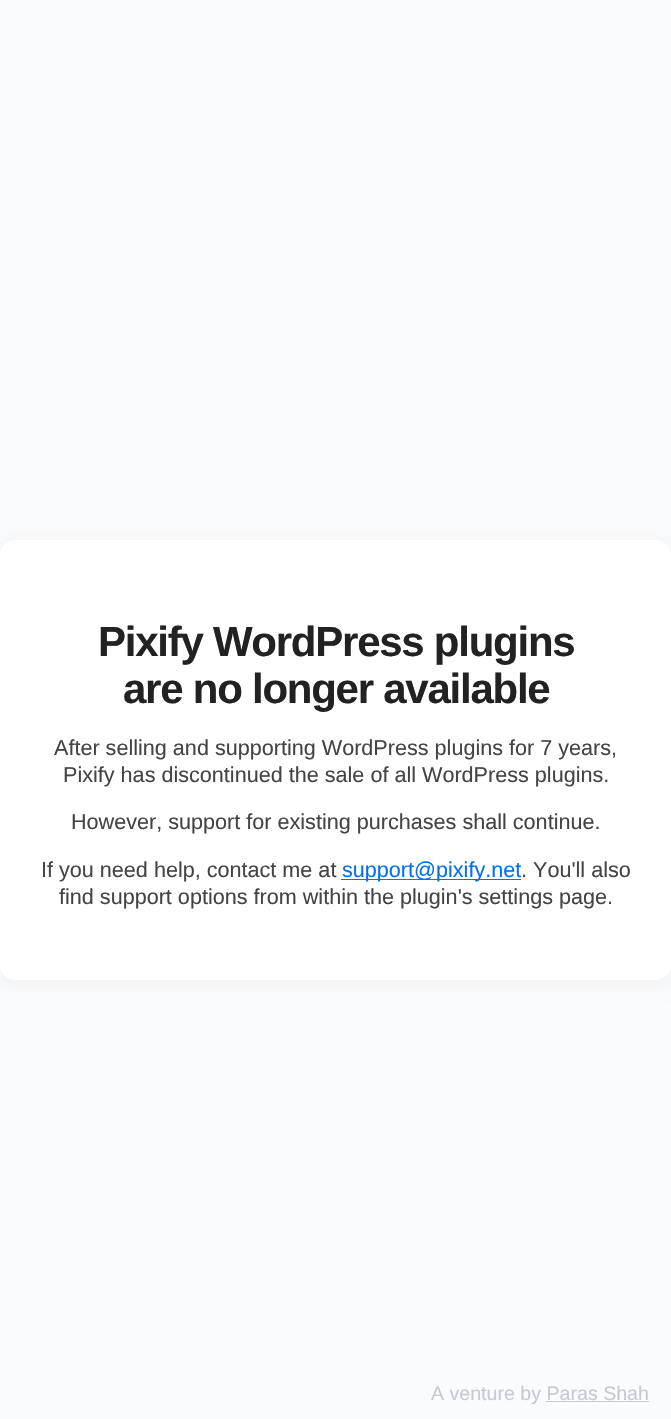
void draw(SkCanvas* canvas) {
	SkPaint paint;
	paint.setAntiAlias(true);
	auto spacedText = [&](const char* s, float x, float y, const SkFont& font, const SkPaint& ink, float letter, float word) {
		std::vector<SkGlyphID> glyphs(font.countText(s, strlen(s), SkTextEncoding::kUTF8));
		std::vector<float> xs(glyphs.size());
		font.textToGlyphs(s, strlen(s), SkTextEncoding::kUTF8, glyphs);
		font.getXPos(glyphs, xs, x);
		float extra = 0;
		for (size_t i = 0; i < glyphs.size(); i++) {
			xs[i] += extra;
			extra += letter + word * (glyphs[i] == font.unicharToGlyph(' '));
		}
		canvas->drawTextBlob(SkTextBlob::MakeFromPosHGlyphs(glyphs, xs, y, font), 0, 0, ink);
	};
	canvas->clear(0xfffafbfc);
	paint.setColor(0x0a000000);
	paint.setMaskFilter(SkMaskFilter::MakeBlur(kNormal_SkBlurStyle, 10));
	canvas->drawRoundRect(SkRect::MakeXYWH(0, 543, 671, 440), 15, 15, paint);
	paint.setMaskFilter(nullptr);
	paint.setColor(0xffffffff);
	canvas->drawRoundRect(SkRect::MakeXYWH(0, 540, 671, 440), 15, 15, paint);
	SkFont f1(fontMgr->matchFamilyStyle("Liberation Sans", SkFontStyle::Bold()), 42);
	f1.setSubpixel(true);
	paint.setColor(0xff222222);
	spacedText("Pixify WordPress plugins", 98, 656, f1, paint, -1.25, 0);
	spacedText("are no longer available", 123, 703, f1, paint, -1.25, 0);
	SkFont f2(fontMgr->matchFamilyStyle("Liberation Sans", SkFontStyle::Normal()), 21.6);
	f2.setSubpixel(true);
	paint.setColor(0xff444444);
	canvas->drawString("After selling and supporting WordPress plugins for 7 years,", 54, 755, f2, paint);
	canvas->drawString("Pixify has discontinued the sale of all WordPress plugins.", 63, 782, f2, paint);
	canvas->drawString("However, support for existing purchases shall continue.", 71, 829, f2, paint);
	canvas->drawString("If you need help, contact me at", 41, 877, f2, paint);
	paint.setColor(0xff0070f3);
	canvas->drawRect(SkRect::MakeXYWH(341, 879, 180, 1), paint);
	canvas->drawString("support@pixify.net", 342, 877, f2, paint);
	paint.setColor(0xff444444);
	canvas->drawString(". You'll also", 521, 877, f2, paint);
	canvas->drawString("find support options from within the plugin's settings page.", 59, 904, f2, paint);
	SkFont f3(fontMgr->matchFamilyStyle("Liberation Sans", SkFontStyle::Normal()), 19.6);
	f3.setSubpixel(true);
	paint.setColor(0xffc6cbd1);
	canvas->drawString("A venture by Paras Shah", 431, 1400, f3, paint);
	canvas->drawRect(SkRect::MakeXYWH(546, 1401, 103, 1), paint);
}
